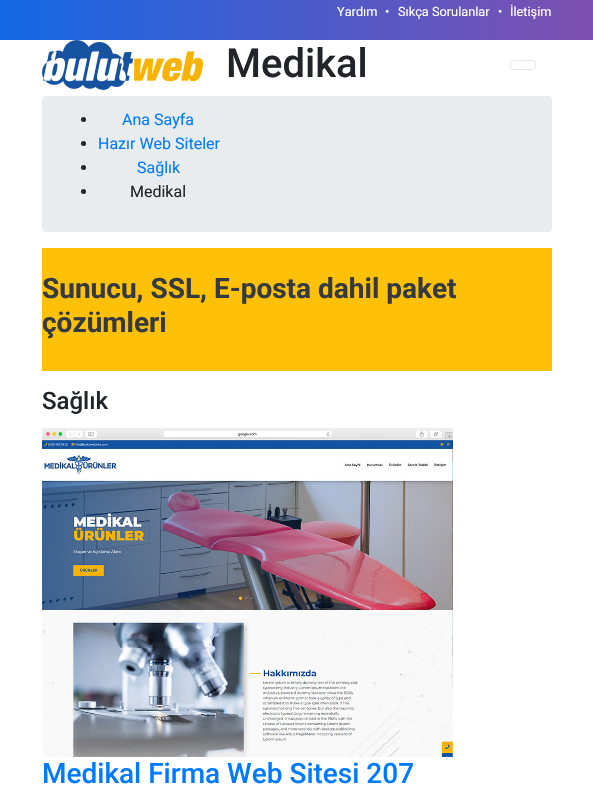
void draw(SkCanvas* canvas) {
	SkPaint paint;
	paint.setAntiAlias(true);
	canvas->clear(0xffffffff);
	{
		const SkColor colors[] = {0xff7f4fb1, 0xff1368e5};
		const float stops[] = {0, 1};
		const SkPoint ends[] = {{593, 20}, {0, 20}};
		paint.setShader(SkGradientShader::MakeLinear(ends, colors, stops, 2, SkTileMode::kClamp));
		paint.setAlpha(255);
	}
	canvas->drawRect(SkRect::MakeXYWH(0, 0, 593, 40), paint);
	SkFont f1(fontMgr->matchFamilyStyle("Roboto", SkFontStyle::Normal()), 12.75);
	f1.setSubpixel(true);
	paint.setShader(nullptr);
	paint.setColor(0xffffffff);
	canvas->drawString("Yardım", 337, 16, f1, paint);
	canvas->drawString("•", 385, 16, f1, paint);
	canvas->drawString("Sıkça Sorulanlar", 398, 16, f1, paint);
	canvas->drawString("•", 498, 16, f1, paint);
	canvas->drawString("İletişim", 510, 16, f1, paint);
	canvas->drawImageRect(SkImages::DeferredFromEncodedData(SkData::MakeFromFileName("img1.png")), SkRect::MakeXYWH(42, 40, 161, 50), SkSamplingOptions());
	paint.setStroke(true);
	paint.setStrokeWidth(1);
	paint.setColor(0xffe6e6e6);
	canvas->drawRoundRect(SkRect::MakeXYWH(510.5, 60.5, 25, 9), 3.5, 3.5, paint);
	SkFont f2(fontMgr->matchFamilyStyle("Roboto", SkFontStyle(500, SkFontStyle::kNormal_Width, SkFontStyle::kUpright_Slant)), 40);
	f2.setSubpixel(true);
	paint.setStroke(false);
	paint.setColor(0xff212529);
	canvas->drawString("Medikal", 226, 77, f2, paint);
	paint.setColor(0xffe9ecef);
	canvas->drawRoundRect(SkRect::MakeXYWH(42, 96, 510, 136), 4, 4, paint);
	paint.setColor(0xff212529);
	canvas->drawCircle(83.5, 119.5, 2.5, paint);
	SkFont f3(fontMgr->matchFamilyStyle("Roboto", SkFontStyle::Normal()), 16);
	f3.setSubpixel(true);
	paint.setColor(0xff007bff);
	canvas->drawString("Ana Sayfa", 122, 125, f3, paint);
	paint.setColor(0xff212529);
	canvas->drawCircle(83.5, 143.5, 2.5, paint);
	paint.setColor(0xff007bff);
	canvas->drawString("Hazır Web Siteler", 98, 149, f3, paint);
	paint.setColor(0xff212529);
	canvas->drawCircle(83.5, 167.5, 2.5, paint);
	paint.setColor(0xff007bff);
	canvas->drawString("Sağlık", 137, 173, f3, paint);
	paint.setColor(0xff212529);
	canvas->drawCircle(83.5, 191.5, 2.5, paint);
	canvas->drawString("Medikal", 130, 197, f3, paint);
	paint.setColor(0xffffc107);
	canvas->drawRect(SkRect::MakeXYWH(42, 248, 510, 123), paint);
	SkFont f4(fontMgr->matchFamilyStyle("Roboto", SkFontStyle::Bold()), 28);
	f4.setSubpixel(true);
	paint.setColor(0xff343a40);
	canvas->drawString("Sunucu, SSL, E-posta dahil paket", 42, 298, f4, paint);
	canvas->drawString("çözümleri", 42, 332, f4, paint);
	SkFont f5(fontMgr->matchFamilyStyle("Roboto", SkFontStyle(500, SkFontStyle::kNormal_Width, SkFontStyle::kUpright_Slant)), 24);
	f5.setSubpixel(true);
	paint.setColor(0xff212529);
	canvas->drawString("Sağlık", 42, 409, f5, paint);
	canvas->drawImageRect(SkImages::DeferredFromEncodedData(SkData::MakeFromFileName("img2.png")), SkRect::MakeXYWH(42, 428, 411, 329), SkSamplingOptions());
	SkFont f6(fontMgr->matchFamilyStyle("Roboto", SkFontStyle(500, SkFontStyle::kNormal_Width, SkFontStyle::kUpright_Slant)), 28);
	f6.setSubpixel(true);
	paint.setColor(0xff007bff);
	canvas->drawString("Medikal Firma Web Sitesi 207", 42, 783, f6, paint);
}
